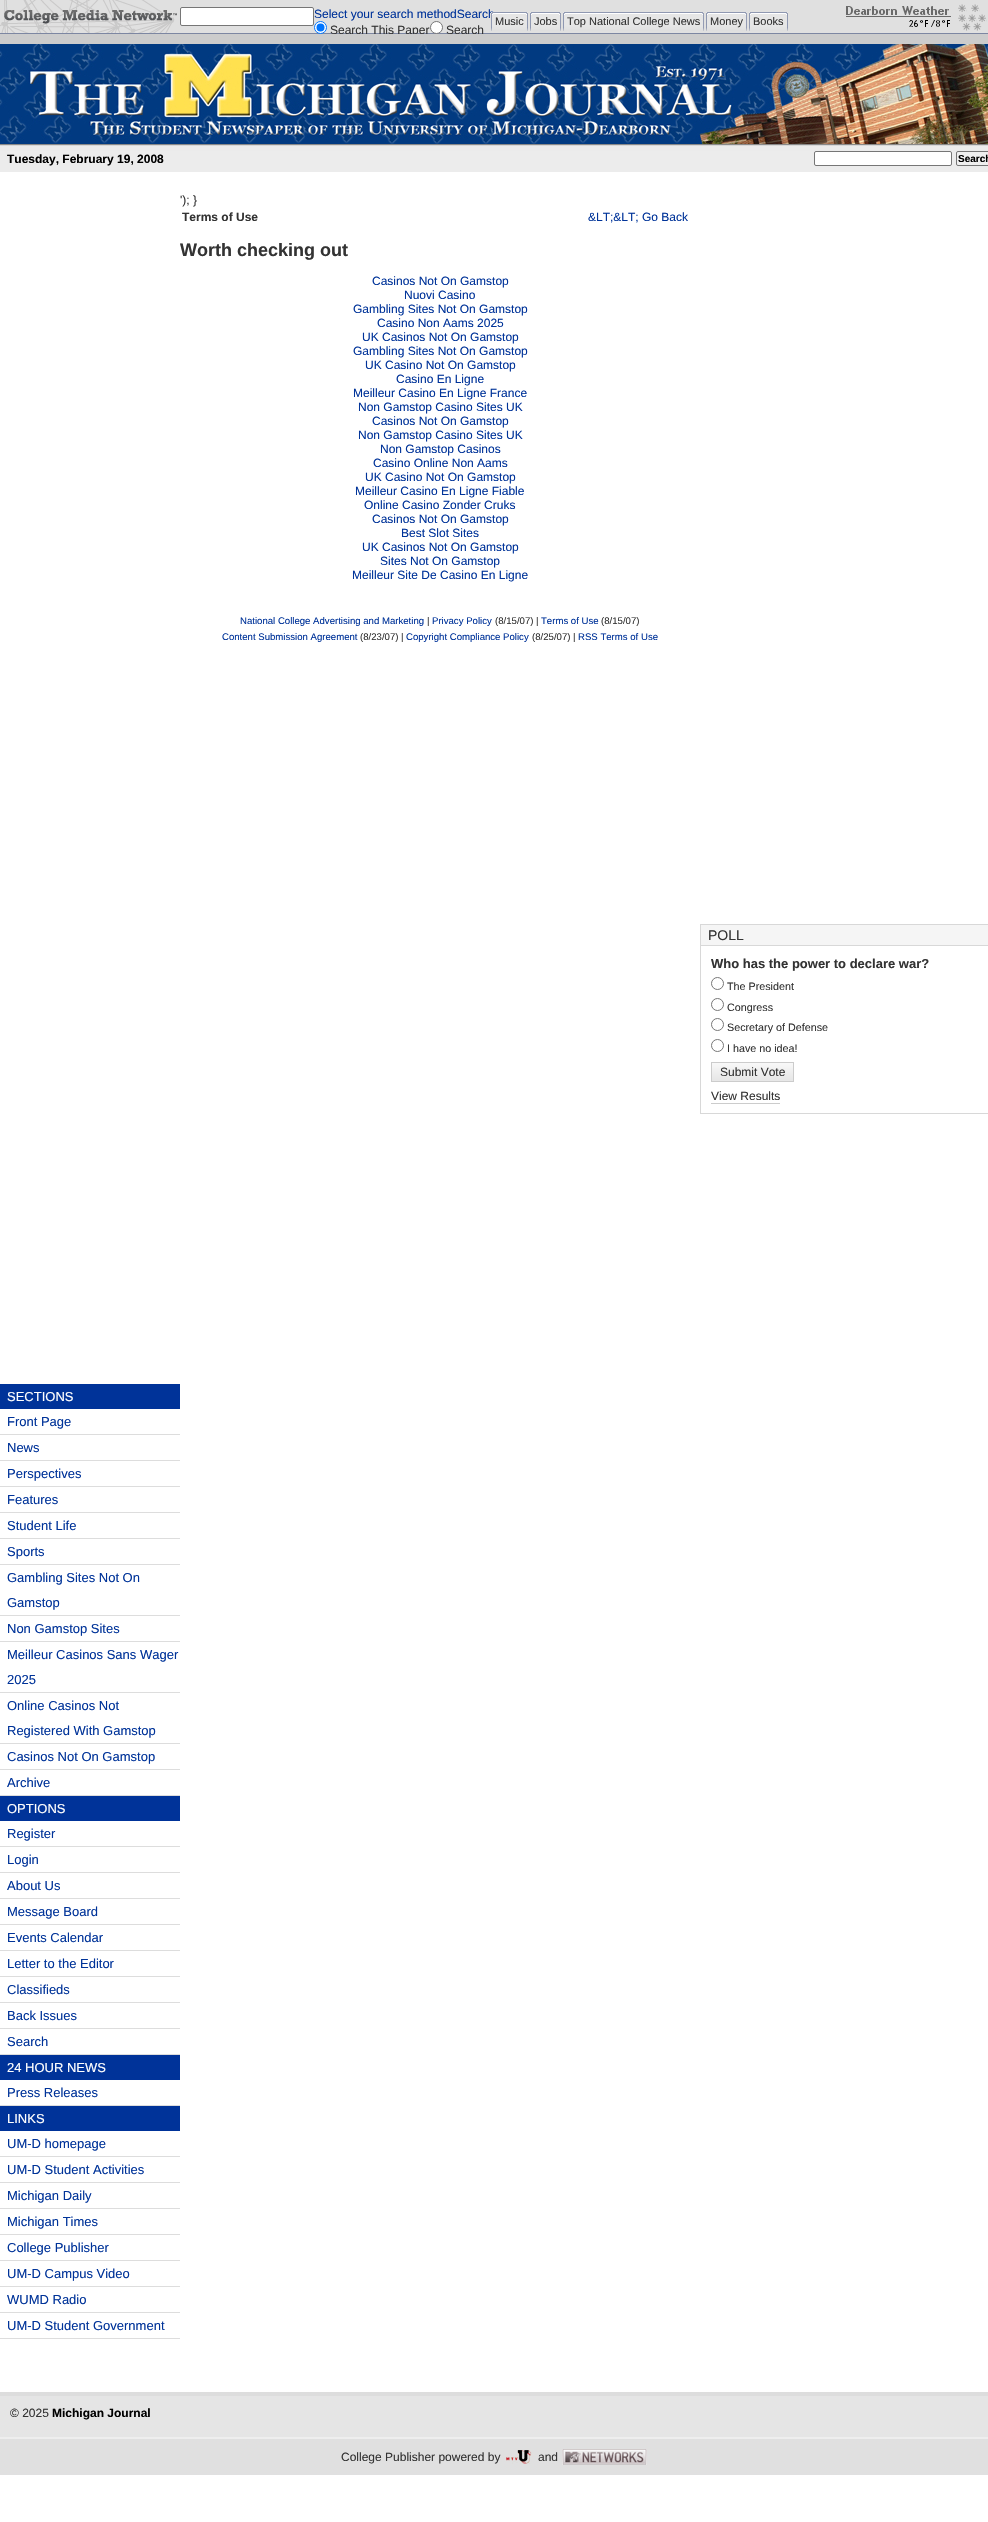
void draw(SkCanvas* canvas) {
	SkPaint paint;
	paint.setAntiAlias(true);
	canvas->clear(0xffffffff);
	paint.setColor(0xffe0e0e0);
	canvas->drawRect(SkRect::MakeXYWH(177, 0, 811, 33), paint);
	paint.setColor(0xff7d87a2);
	canvas->drawRect(SkRect::MakeXYWH(0, 33, 988, 1), paint);
	canvas->drawImageRect(SkImages::DeferredFromEncodedData(SkData::MakeFromFileName("img1.png")), SkRect::MakeXYWH(0, 0, 177, 33), SkSamplingOptions());
	paint.setColor(0xffffffff);
	canvas->drawRoundRect(SkRect::MakeXYWH(180.5, 7.5, 133, 18), 1.5, 1.5, paint);
	paint.setStroke(true);
	paint.setStrokeWidth(1);
	paint.setColor(0xff767676);
	canvas->drawRoundRect(SkRect::MakeXYWH(180.5, 7.5, 133, 18), 1.5, 1.5, paint);
	SkFont f1(fontMgr->matchFamilyStyle("Liberation Sans", SkFontStyle::Normal()), 12);
	f1.setSubpixel(true);
	paint.setStroke(false);
	paint.setColor(0xff003399);
	canvas->drawString("Select your search methodSearch", 314, 18, f1, paint);
	paint.setColor(0xffffffff);
	canvas->drawCircle(320.5, 27.5, 6, paint);
	paint.setStroke(true);
	paint.setColor(0xff0075ff);
	canvas->drawCircle(320.5, 27.5, 6, paint);
	paint.setStroke(false);
	canvas->drawCircle(320.5, 27.5, 4, paint);
	paint.setColor(0xff333333);
	canvas->drawString("Search This Paper", 330, 34, f1, paint);
	paint.setColor(0xffffffff);
	canvas->drawCircle(436.5, 27.5, 6, paint);
	paint.setStroke(true);
	paint.setColor(0xff767676);
	canvas->drawCircle(436.5, 27.5, 6, paint);
	paint.setStroke(false);
	paint.setColor(0xff333333);
	canvas->drawString("Search", 446, 34, f1, paint);
	canvas->drawImageRect(SkImages::DeferredFromEncodedData(SkData::MakeFromFileName("img2.png")), SkRect::MakeXYWH(493, 12, 35, 19), SkSamplingOptions());
	canvas->drawImageRect(SkImages::DeferredFromEncodedData(SkData::MakeFromFileName("img3.png")), SkRect::MakeXYWH(491, 12, 2, 19), SkSamplingOptions());
	SkFont f2(fontMgr->matchFamilyStyle("Liberation Sans", SkFontStyle::Normal()), 11);
	f2.setSubpixel(true);
	canvas->drawString("Music", 495, 25, f2, paint);
	canvas->drawImageRect(SkImages::DeferredFromEncodedData(SkData::MakeFromFileName("img4.png")), SkRect::MakeXYWH(532, 12, 29, 19), SkSamplingOptions());
	canvas->drawImageRect(SkImages::DeferredFromEncodedData(SkData::MakeFromFileName("img3.png")), SkRect::MakeXYWH(530, 12, 2, 19), SkSamplingOptions());
	canvas->drawString("Jobs", 534, 25, f2, paint);
	canvas->drawImageRect(SkImages::DeferredFromEncodedData(SkData::MakeFromFileName("img5.png")), SkRect::MakeXYWH(565, 12, 139, 19), SkSamplingOptions());
	canvas->drawImageRect(SkImages::DeferredFromEncodedData(SkData::MakeFromFileName("img3.png")), SkRect::MakeXYWH(563, 12, 2, 19), SkSamplingOptions());
	canvas->drawString("Top National College News", 567, 25, f2, paint);
	canvas->drawImageRect(SkImages::DeferredFromEncodedData(SkData::MakeFromFileName("img6.png")), SkRect::MakeXYWH(708, 12, 39, 19), SkSamplingOptions());
	canvas->drawImageRect(SkImages::DeferredFromEncodedData(SkData::MakeFromFileName("img3.png")), SkRect::MakeXYWH(706, 12, 2, 19), SkSamplingOptions());
	canvas->drawString("Money", 710, 25, f2, paint);
	canvas->drawImageRect(SkImages::DeferredFromEncodedData(SkData::MakeFromFileName("img7.png")), SkRect::MakeXYWH(751, 12, 37, 19), SkSamplingOptions());
	canvas->drawImageRect(SkImages::DeferredFromEncodedData(SkData::MakeFromFileName("img3.png")), SkRect::MakeXYWH(749, 12, 2, 19), SkSamplingOptions());
	canvas->drawString("Books", 753, 25, f2, paint);
	canvas->drawImageRect(SkImages::DeferredFromEncodedData(SkData::MakeFromFileName("img8.png")), SkRect::MakeXYWH(846, 4, 141, 27), SkSamplingOptions());
	paint.setColor(0xffcccccc);
	canvas->drawRect(SkRect::MakeXYWH(0, 34, 988, 10), paint);
	canvas->drawImageRect(SkImages::DeferredFromEncodedData(SkData::MakeFromFileName("img9.png")), SkRect::MakeXYWH(0, 44, 988, 100), SkSamplingOptions());
	canvas->drawImageRect(SkImages::DeferredFromEncodedData(SkData::MakeFromFileName("img10.png")), SkRect::MakeXYWH(0, 144, 988, 28), SkSamplingOptions());
	SkFont f3(fontMgr->matchFamilyStyle("Liberation Sans", SkFontStyle::Bold()), 12);
	f3.setSubpixel(true);
	paint.setColor(0xff000000);
	canvas->drawString("Tuesday, February 19, 2008", 7, 163, f3, paint);
	paint.setColor(0xffffffff);
	canvas->drawRoundRect(SkRect::MakeXYWH(814.5, 151.5, 137, 14), 1.5, 1.5, paint);
	paint.setStroke(true);
	paint.setColor(0xff767676);
	canvas->drawRoundRect(SkRect::MakeXYWH(814.5, 151.5, 137, 14), 1.5, 1.5, paint);
	paint.setStroke(false);
	paint.setColor(0xffefefef);
	canvas->drawRoundRect(SkRect::MakeXYWH(956.5, 151.5, 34, 14), 1.5, 1.5, paint);
	paint.setStroke(true);
	paint.setColor(0xff767676);
	canvas->drawRoundRect(SkRect::MakeXYWH(956.5, 151.5, 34, 14), 1.5, 1.5, paint);
	SkFont f4(fontMgr->matchFamilyStyle("Liberation Sans", SkFontStyle::Bold()), 10);
	f4.setSubpixel(true);
	paint.setStroke(false);
	paint.setColor(0xff000000);
	canvas->drawString("Search", 958, 162, f4, paint);
	paint.setColor(0xff333333);
	canvas->drawString("'); }", 180, 204, f1, paint);
	canvas->drawString("Terms of Use", 182, 221, f3, paint);
	paint.setColor(0xff003399);
	canvas->drawString("&LT;&LT; Go Back", 588, 221, f1, paint);
	SkFont f5(fontMgr->matchFamilyStyle("Liberation Sans", SkFontStyle::Bold()), 18);
	f5.setSubpixel(true);
	paint.setColor(0xff333333);
	canvas->drawString("Worth checking out", 180, 256, f5, paint);
	paint.setColor(0xff003399);
	canvas->drawString("Casinos Not On Gamstop", 372, 285, f1, paint);
	canvas->drawString("Nuovi Casino", 404, 299, f1, paint);
	canvas->drawString("Gambling Sites Not On Gamstop", 353, 313, f1, paint);
	canvas->drawString("Casino Non Aams 2025", 377, 327, f1, paint);
	canvas->drawString("UK Casinos Not On Gamstop", 362, 341, f1, paint);
	canvas->drawString("Gambling Sites Not On Gamstop", 353, 355, f1, paint);
	canvas->drawString("UK Casino Not On Gamstop", 365, 369, f1, paint);
	canvas->drawString("Casino En Ligne", 396, 383, f1, paint);
	canvas->drawString("Meilleur Casino En Ligne France", 353, 397, f1, paint);
	canvas->drawString("Non Gamstop Casino Sites UK", 358, 411, f1, paint);
	canvas->drawString("Casinos Not On Gamstop", 372, 425, f1, paint);
	canvas->drawString("Non Gamstop Casino Sites UK", 358, 439, f1, paint);
	canvas->drawString("Non Gamstop Casinos", 380, 453, f1, paint);
	canvas->drawString("Casino Online Non Aams", 373, 467, f1, paint);
	canvas->drawString("UK Casino Not On Gamstop", 365, 481, f1, paint);
	canvas->drawString("Meilleur Casino En Ligne Fiable", 355, 495, f1, paint);
	canvas->drawString("Online Casino Zonder Cruks", 364, 509, f1, paint);
	canvas->drawString("Casinos Not On Gamstop", 372, 523, f1, paint);
	canvas->drawString("Best Slot Sites", 401, 537, f1, paint);
	canvas->drawString("UK Casinos Not On Gamstop", 362, 551, f1, paint);
	canvas->drawString("Sites Not On Gamstop", 380, 565, f1, paint);
	canvas->drawString("Meilleur Site De Casino En Ligne", 352, 579, f1, paint);
	SkFont f6(fontMgr->matchFamilyStyle("Liberation Sans", SkFontStyle::Normal()), 9.6);
	f6.setSubpixel(true);
	canvas->drawString("National College Advertising and Marketing", 240, 624, f6, paint);
	paint.setColor(0xff333333);
	canvas->drawString("|", 427, 624, f6, paint);
	paint.setColor(0xff003399);
	canvas->drawString("Privacy Policy", 432, 624, f6, paint);
	paint.setColor(0xff333333);
	canvas->drawString("(8/15/07) |", 495, 624, f6, paint);
	paint.setColor(0xff003399);
	canvas->drawString("Terms of Use", 541, 624, f6, paint);
	paint.setColor(0xff333333);
	canvas->drawString("(8/15/07)", 601, 624, f6, paint);
	paint.setColor(0xff003399);
	canvas->drawString("Content Submission Agreement", 222, 640, f6, paint);
	paint.setColor(0xff333333);
	canvas->drawString("(8/23/07) |", 360, 640, f6, paint);
	paint.setColor(0xff003399);
	canvas->drawString("Copyright Compliance Policy", 406, 640, f6, paint);
	paint.setColor(0xff333333);
	canvas->drawString("(8/25/07) |", 532, 640, f6, paint);
	paint.setColor(0xff003399);
	canvas->drawString("RSS Terms of Use", 578, 640, f6, paint);
	paint.setStroke(true);
	paint.setColor(0xffd8d8d8);
	canvas->drawRect(SkRect::MakeXYWH(700.5, 924.5, 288, 189), paint);
	paint.setStroke(false);
	paint.setColor(0xfff5f5f5);
	canvas->drawRect(SkRect::MakeXYWH(701, 925, 287, 20), paint);
	paint.setColor(0xffd8d8d8);
	canvas->drawRect(SkRect::MakeXYWH(701, 945, 287, 1), paint);
	SkFont f7(fontMgr->matchFamilyStyle("Liberation Sans", SkFontStyle::Normal()), 14);
	f7.setSubpixel(true);
	paint.setColor(0xff333333);
	canvas->drawString("POLL", 708, 940, f7, paint);
	SkFont f8(fontMgr->matchFamilyStyle("Liberation Sans", SkFontStyle::Bold()), 13);
	f8.setSubpixel(true);
	canvas->drawString("Who has the power to declare war?", 711, 968, f8, paint);
	paint.setStroke(true);
	paint.setColor(0xff767676);
	canvas->drawCircle(717.5, 983.5, 6, paint);
	SkFont f9(fontMgr->matchFamilyStyle("Liberation Sans", SkFontStyle::Normal()), 10.75);
	f9.setSubpixel(true);
	paint.setStroke(false);
	paint.setColor(0xff333333);
	canvas->drawString("The President", 727, 990, f9, paint);
	paint.setStroke(true);
	paint.setColor(0xff767676);
	canvas->drawCircle(717.5, 1004.5, 6, paint);
	paint.setStroke(false);
	paint.setColor(0xff333333);
	canvas->drawString("Congress", 727, 1011, f9, paint);
	paint.setStroke(true);
	paint.setColor(0xff767676);
	canvas->drawCircle(717.5, 1024.5, 6, paint);
	paint.setStroke(false);
	paint.setColor(0xff333333);
	canvas->drawString("Secretary of Defense", 727, 1031, f9, paint);
	paint.setStroke(true);
	paint.setColor(0xff767676);
	canvas->drawCircle(717.5, 1045.5, 6, paint);
	paint.setStroke(false);
	paint.setColor(0xff333333);
	canvas->drawString("I have no idea!", 727, 1052, f9, paint);
	canvas->drawImageRect(SkImages::DeferredFromEncodedData(SkData::MakeFromFileName("img11.png")), SkRect::MakeXYWH(712, 1063, 81, 18), SkSamplingOptions());
	paint.setStroke(true);
	paint.setColor(0xffcccccc);
	canvas->drawRect(SkRect::MakeXYWH(711.5, 1062.5, 82, 19), paint);
	paint.setStroke(false);
	paint.setColor(0xff333333);
	canvas->drawString("Submit Vote", 720, 1076, f1, paint);
	canvas->drawString("View Results", 711, 1100, f1, paint);
	paint.setColor(0xffcccccc);
	canvas->drawRect(SkRect::MakeXYWH(711, 1103, 69, 1), paint);
	paint.setColor(0xff003399);
	canvas->drawRect(SkRect::MakeXYWH(0, 1384, 180, 25), paint);
	SkFont f10(fontMgr->matchFamilyStyle("Liberation Sans", SkFontStyle::Normal()), 13);
	f10.setSubpixel(true);
	paint.setColor(0xffffffff);
	canvas->drawString("SECTIONS", 7, 1401, f10, paint);
	paint.setColor(0xffdddddd);
	canvas->drawRect(SkRect::MakeXYWH(0, 1434, 180, 1), paint);
	paint.setColor(0xff003399);
	canvas->drawString("Front Page", 7, 1426, f10, paint);
	paint.setColor(0xffdddddd);
	canvas->drawRect(SkRect::MakeXYWH(0, 1460, 180, 1), paint);
	paint.setColor(0xff003399);
	canvas->drawString("News", 7, 1452, f10, paint);
	paint.setColor(0xffdddddd);
	canvas->drawRect(SkRect::MakeXYWH(0, 1486, 180, 1), paint);
	paint.setColor(0xff003399);
	canvas->drawString("Perspectives", 7, 1478, f10, paint);
	paint.setColor(0xffdddddd);
	canvas->drawRect(SkRect::MakeXYWH(0, 1512, 180, 1), paint);
	paint.setColor(0xff003399);
	canvas->drawString("Features", 7, 1504, f10, paint);
	paint.setColor(0xffdddddd);
	canvas->drawRect(SkRect::MakeXYWH(0, 1538, 180, 1), paint);
	paint.setColor(0xff003399);
	canvas->drawString("Student Life", 7, 1530, f10, paint);
	paint.setColor(0xffdddddd);
	canvas->drawRect(SkRect::MakeXYWH(0, 1564, 180, 1), paint);
	paint.setColor(0xff003399);
	canvas->drawString("Sports", 7, 1556, f10, paint);
	paint.setColor(0xffdddddd);
	canvas->drawRect(SkRect::MakeXYWH(0, 1615, 180, 1), paint);
	paint.setColor(0xff003399);
	canvas->drawString("Gambling Sites Not On", 7, 1582, f10, paint);
	canvas->drawString("Gamstop", 7, 1607, f10, paint);
	paint.setColor(0xffdddddd);
	canvas->drawRect(SkRect::MakeXYWH(0, 1641, 180, 1), paint);
	paint.setColor(0xff003399);
	canvas->drawString("Non Gamstop Sites", 7, 1633, f10, paint);
	paint.setColor(0xffdddddd);
	canvas->drawRect(SkRect::MakeXYWH(0, 1692, 180, 1), paint);
	paint.setColor(0xff003399);
	canvas->drawString("Meilleur Casinos Sans Wager", 7, 1659, f10, paint);
	canvas->drawString("2025", 7, 1684, f10, paint);
	paint.setColor(0xffdddddd);
	canvas->drawRect(SkRect::MakeXYWH(0, 1743, 180, 1), paint);
	paint.setColor(0xff003399);
	canvas->drawString("Online Casinos Not", 7, 1710, f10, paint);
	canvas->drawString("Registered With Gamstop", 7, 1735, f10, paint);
	paint.setColor(0xffdddddd);
	canvas->drawRect(SkRect::MakeXYWH(0, 1769, 180, 1), paint);
	paint.setColor(0xff003399);
	canvas->drawString("Casinos Not On Gamstop", 7, 1761, f10, paint);
	paint.setColor(0xffdddddd);
	canvas->drawRect(SkRect::MakeXYWH(0, 1795, 180, 1), paint);
	paint.setColor(0xff003399);
	canvas->drawString("Archive", 7, 1787, f10, paint);
	canvas->drawRect(SkRect::MakeXYWH(0, 1796, 180, 25), paint);
	paint.setColor(0xffffffff);
	canvas->drawString("OPTIONS", 7, 1813, f10, paint);
	paint.setColor(0xffdddddd);
	canvas->drawRect(SkRect::MakeXYWH(0, 1846, 180, 1), paint);
	paint.setColor(0xff003399);
	canvas->drawString("Register", 7, 1838, f10, paint);
	paint.setColor(0xffdddddd);
	canvas->drawRect(SkRect::MakeXYWH(0, 1872, 180, 1), paint);
	paint.setColor(0xff003399);
	canvas->drawString("Login", 7, 1864, f10, paint);
	paint.setColor(0xffdddddd);
	canvas->drawRect(SkRect::MakeXYWH(0, 1898, 180, 1), paint);
	paint.setColor(0xff003399);
	canvas->drawString("About Us", 7, 1890, f10, paint);
	paint.setColor(0xffdddddd);
	canvas->drawRect(SkRect::MakeXYWH(0, 1924, 180, 1), paint);
	paint.setColor(0xff003399);
	canvas->drawString("Message Board", 7, 1916, f10, paint);
	paint.setColor(0xffdddddd);
	canvas->drawRect(SkRect::MakeXYWH(0, 1950, 180, 1), paint);
	paint.setColor(0xff003399);
	canvas->drawString("Events Calendar", 7, 1942, f10, paint);
	paint.setColor(0xffdddddd);
	canvas->drawRect(SkRect::MakeXYWH(0, 1976, 180, 1), paint);
	paint.setColor(0xff003399);
	canvas->drawString("Letter to the Editor", 7, 1968, f10, paint);
	paint.setColor(0xffdddddd);
	canvas->drawRect(SkRect::MakeXYWH(0, 2002, 180, 1), paint);
	paint.setColor(0xff003399);
	canvas->drawString("Classifieds", 7, 1994, f10, paint);
	paint.setColor(0xffdddddd);
	canvas->drawRect(SkRect::MakeXYWH(0, 2028, 180, 1), paint);
	paint.setColor(0xff003399);
	canvas->drawString("Back Issues", 7, 2020, f10, paint);
	paint.setColor(0xffdddddd);
	canvas->drawRect(SkRect::MakeXYWH(0, 2054, 180, 1), paint);
	paint.setColor(0xff003399);
	canvas->drawString("Search", 7, 2046, f10, paint);
	canvas->drawRect(SkRect::MakeXYWH(0, 2055, 180, 25), paint);
	paint.setColor(0xffffffff);
	canvas->drawString("24 HOUR NEWS", 7, 2072, f10, paint);
	paint.setColor(0xffdddddd);
	canvas->drawRect(SkRect::MakeXYWH(0, 2105, 180, 1), paint);
	paint.setColor(0xff003399);
	canvas->drawString("Press Releases", 7, 2097, f10, paint);
	canvas->drawRect(SkRect::MakeXYWH(0, 2106, 180, 25), paint);
	paint.setColor(0xffffffff);
	canvas->drawString("LINKS", 7, 2123, f10, paint);
	paint.setColor(0xffdddddd);
	canvas->drawRect(SkRect::MakeXYWH(0, 2156, 180, 1), paint);
	paint.setColor(0xff003399);
	canvas->drawString("UM-D homepage", 7, 2148, f10, paint);
	paint.setColor(0xffdddddd);
	canvas->drawRect(SkRect::MakeXYWH(0, 2182, 180, 1), paint);
	paint.setColor(0xff003399);
	canvas->drawString("UM-D Student Activities", 7, 2174, f10, paint);
	paint.setColor(0xffdddddd);
	canvas->drawRect(SkRect::MakeXYWH(0, 2208, 180, 1), paint);
	paint.setColor(0xff003399);
	canvas->drawString("Michigan Daily", 7, 2200, f10, paint);
	paint.setColor(0xffdddddd);
	canvas->drawRect(SkRect::MakeXYWH(0, 2234, 180, 1), paint);
	paint.setColor(0xff003399);
	canvas->drawString("Michigan Times", 7, 2226, f10, paint);
	paint.setColor(0xffdddddd);
	canvas->drawRect(SkRect::MakeXYWH(0, 2260, 180, 1), paint);
	paint.setColor(0xff003399);
	canvas->drawString("College Publisher", 7, 2252, f10, paint);
	paint.setColor(0xffdddddd);
	canvas->drawRect(SkRect::MakeXYWH(0, 2286, 180, 1), paint);
	paint.setColor(0xff003399);
	canvas->drawString("UM-D Campus Video", 7, 2278, f10, paint);
	paint.setColor(0xffdddddd);
	canvas->drawRect(SkRect::MakeXYWH(0, 2312, 180, 1), paint);
	paint.setColor(0xff003399);
	canvas->drawString("WUMD Radio", 7, 2304, f10, paint);
	paint.setColor(0xffdddddd);
	canvas->drawRect(SkRect::MakeXYWH(0, 2338, 180, 1), paint);
	paint.setColor(0xff003399);
	canvas->drawString("UM-D Student Government", 7, 2330, f10, paint);
	paint.setColor(0xffe5e5e5);
	canvas->drawRect(SkRect::MakeXYWH(0, 2396, 988, 41), paint);
	paint.setColor(0xffdddddd);
	canvas->drawRect(SkRect::MakeXYWH(0, 2392, 988, 4), paint);
	paint.setColor(0xff333333);
	canvas->drawString("© 2025", 10, 2417, f1, paint);
	paint.setColor(0xff000000);
	canvas->drawString("Michigan Journal", 52, 2417, f3, paint);
	paint.setColor(0xffe0e0e0);
	canvas->drawRect(SkRect::MakeXYWH(0, 2439, 988, 36), paint);
	paint.setColor(0xffeeeeee);
	canvas->drawRect(SkRect::MakeXYWH(0, 2437, 988, 2), paint);
	paint.setColor(0xff333333);
	canvas->drawString("College Publisher powered by", 341, 2461, f1, paint);
	canvas->drawImageRect(SkImages::DeferredFromEncodedData(SkData::MakeFromFileName("img12.png")), SkRect::MakeXYWH(506, 2450, 26, 14), SkSamplingOptions());
	canvas->drawString("and", 538, 2461, f1, paint);
	canvas->drawImageRect(SkImages::DeferredFromEncodedData(SkData::MakeFromFileName("img13.png")), SkRect::MakeXYWH(562, 2449, 85, 16), SkSamplingOptions());
}
